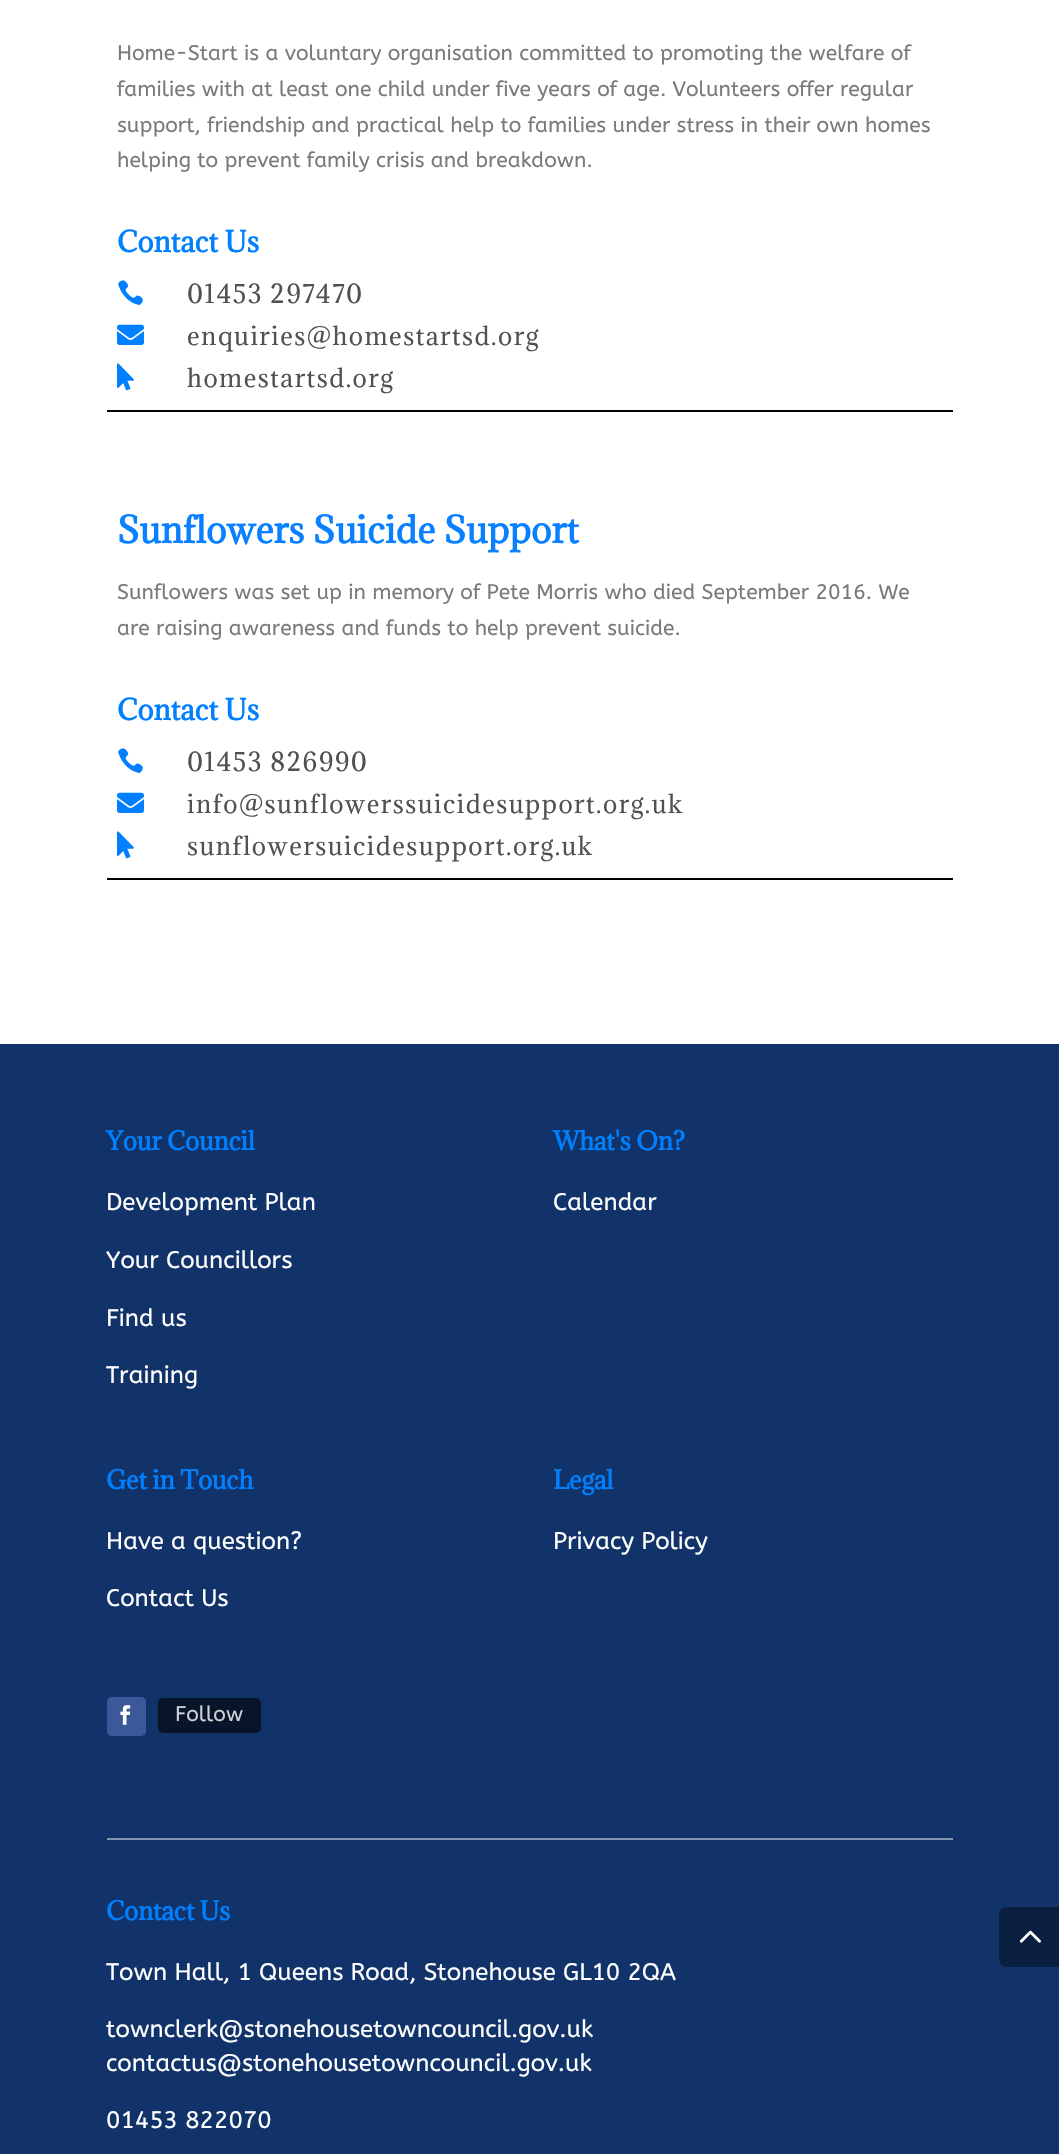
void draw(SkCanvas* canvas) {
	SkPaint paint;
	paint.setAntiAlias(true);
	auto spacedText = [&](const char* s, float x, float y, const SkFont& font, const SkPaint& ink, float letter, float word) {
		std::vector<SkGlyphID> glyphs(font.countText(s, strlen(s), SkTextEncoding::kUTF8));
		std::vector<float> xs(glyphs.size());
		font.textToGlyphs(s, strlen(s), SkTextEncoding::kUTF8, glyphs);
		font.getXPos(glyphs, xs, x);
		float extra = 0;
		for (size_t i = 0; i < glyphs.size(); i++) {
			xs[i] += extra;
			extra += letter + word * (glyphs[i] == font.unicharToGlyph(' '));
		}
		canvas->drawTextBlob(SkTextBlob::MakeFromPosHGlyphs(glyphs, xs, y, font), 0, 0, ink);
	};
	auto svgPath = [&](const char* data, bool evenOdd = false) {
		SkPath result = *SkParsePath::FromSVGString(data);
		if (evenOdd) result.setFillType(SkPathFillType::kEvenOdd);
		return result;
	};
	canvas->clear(0xffffffff);
	paint.setColor(0xff000000);
	canvas->drawRect(SkRect::MakeXYWH(107, 410, 846, 2), paint);
	SkFont f1(fontMgr->matchFamilyStyle("ABeeZee", SkFontStyle::Normal()), 21);
	f1.setSubpixel(true);
	paint.setColor(0xff7a7a7a);
	canvas->drawString("Home-Start is a voluntary organisation committed to promoting the welfare of", 117, 60, f1, paint);
	canvas->drawString("families with at least one child under five years of age. Volunteers offer regular", 117, 96, f1, paint);
	canvas->drawString("support, friendship and practical help to families under stress in their own homes", 117, 132, f1, paint);
	canvas->drawString("helping to prevent family crisis and breakdown.", 117, 167, f1, paint);
	SkFont f2(fontMgr->matchFamilyStyle("Adamina", SkFontStyle::Bold()), 27);
	f2.setSubpixel(true);
	paint.setColor(0xff0080ff);
	canvas->drawString("Contact Us", 117, 252, f2, paint);
	canvas->drawImageRect(SkImages::DeferredFromEncodedData(SkData::MakeFromFileName("img1.png")), SkRect::MakeXYWH(118, 280, 25, 26), SkSamplingOptions());
	SkFont f3(fontMgr->matchFamilyStyle("Adamina", SkFontStyle::Normal()), 24);
	f3.setSubpixel(true);
	paint.setColor(0xff515151);
	spacedText("01453 297470", 187, 303, f3, paint, 1.5, 0);
	canvas->drawImageRect(SkImages::DeferredFromEncodedData(SkData::MakeFromFileName("img2.png")), SkRect::MakeXYWH(117, 324, 27, 21), SkSamplingOptions());
	spacedText("enquiries@homestartsd.org", 187, 345, f3, paint, 1.5, 0);
	canvas->drawImageRect(SkImages::DeferredFromEncodedData(SkData::MakeFromFileName("img3.png")), SkRect::MakeXYWH(117, 363, 17, 28), SkSamplingOptions());
	spacedText("homestartsd.org", 187, 387, f3, paint, 1.5, 0);
	paint.setColor(0xff000000);
	canvas->drawRect(SkRect::MakeXYWH(107, 878, 846, 2), paint);
	SkFont f4(fontMgr->matchFamilyStyle("Adamina", SkFontStyle::Bold()), 34.5);
	f4.setSubpixel(true);
	paint.setColor(0xff0880ff);
	canvas->drawString("Sunflowers Suicide Support", 117, 543, f4, paint);
	paint.setColor(0xff7a7a7a);
	canvas->drawString("Sunflowers was set up in memory of Pete Morris who died September 2016. We", 117, 599, f1, paint);
	canvas->drawString("are raising awareness and funds to help prevent suicide.", 117, 635, f1, paint);
	paint.setColor(0xff0080ff);
	canvas->drawString("Contact Us", 117, 720, f2, paint);
	canvas->drawImageRect(SkImages::DeferredFromEncodedData(SkData::MakeFromFileName("img1.png")), SkRect::MakeXYWH(118, 748, 25, 26), SkSamplingOptions());
	paint.setColor(0xff515151);
	spacedText("01453 826990", 187, 771, f3, paint, 1.5, 0);
	canvas->drawImageRect(SkImages::DeferredFromEncodedData(SkData::MakeFromFileName("img2.png")), SkRect::MakeXYWH(117, 792, 27, 21), SkSamplingOptions());
	spacedText("info@sunflowerssuicidesupport.org.uk", 187, 813, f3, paint, 1.5, 0);
	canvas->drawImageRect(SkImages::DeferredFromEncodedData(SkData::MakeFromFileName("img3.png")), SkRect::MakeXYWH(117, 831, 17, 28), SkSamplingOptions());
	spacedText("sunflowersuicidesupport.org.uk", 187, 855, f3, paint, 1.5, 0);
	paint.setColor(0xff113369);
	canvas->drawRect(SkRect::MakeXYWH(0, 1044, 1059, 1110), paint);
	paint.setColor(0xff8395b1);
	canvas->drawRect(SkRect::MakeXYWH(107, 1838, 846, 2), paint);
	SkFont f5(fontMgr->matchFamilyStyle("Adamina", SkFontStyle::Bold()), 24);
	f5.setSubpixel(true);
	paint.setColor(0xff0080ff);
	spacedText("Your Council", 106, 1150, f5, paint, -0.25, 0);
	SkFont f6(fontMgr->matchFamilyStyle("ABeeZee", SkFontStyle::Normal()), 24);
	f6.setSubpixel(true);
	paint.setColor(0xffffffff);
	canvas->drawString("Development Plan", 106, 1210, f6, paint);
	canvas->drawString("Your Councillors", 106, 1268, f6, paint);
	canvas->drawString("Find us", 106, 1326, f6, paint);
	canvas->drawString("Training", 106, 1383, f6, paint);
	paint.setColor(0xff0080ff);
	spacedText("What's On?", 553, 1150, f5, paint, -0.25, 0);
	paint.setColor(0xffffffff);
	canvas->drawString("Calendar", 553, 1210, f6, paint);
	paint.setColor(0xff0080ff);
	spacedText("Get in Touch", 106, 1489, f5, paint, -0.25, 0);
	paint.setColor(0xffffffff);
	canvas->drawString("Have a question?", 106, 1549, f6, paint);
	canvas->drawString("Contact Us", 106, 1606, f6, paint);
	paint.setColor(0xff0080ff);
	spacedText("Legal", 553, 1489, f5, paint, -0.25, 0);
	paint.setColor(0xffffffff);
	canvas->drawString("Privacy Policy", 553, 1549, f6, paint);
	paint.setColor(0xff3b5998);
	canvas->drawRoundRect(SkRect::MakeXYWH(107, 1697, 39, 39), 5, 5, paint);
	canvas->drawImageRect(SkImages::DeferredFromEncodedData(SkData::MakeFromFileName("img4.png")), SkRect::MakeXYWH(120, 1705, 11, 20), SkSamplingOptions());
	paint.setColor(0xff07142a);
	canvas->drawRoundRect(SkRect::MakeXYWH(158, 1698, 103, 35), 5, 5, paint);
	paint.setColor(0xffcdd0d4);
	canvas->drawString("Follow", 175, 1721, f1, paint);
	paint.setColor(0xff0080ff);
	spacedText("Contact Us", 106, 1920, f5, paint, -0.25, 0);
	paint.setColor(0xffffffff);
	canvas->drawString("Town Hall, 1 Queens Road, Stonehouse GL10 2QA", 106, 1980, f6, paint);
	canvas->drawString("townclerk@stonehousetowncouncil.gov.uk", 106, 2037, f6, paint);
	canvas->drawString("contactus@stonehousetowncouncil.gov.uk", 106, 2071, f6, paint);
	canvas->drawString("01453 822070", 106, 2128, f6, paint);
	paint.setColor(0xff0a1f3f);
	canvas->drawPath(svgPath("M1007 1907H1059V1967H1007C1002.5 1967 999 1963.5 999 1959V1915C999 1910.5 1002.5 1907 1007 1907Z"), paint);
	canvas->drawImageRect(SkImages::DeferredFromEncodedData(SkData::MakeFromFileName("img5.png")), SkRect::MakeXYWH(1019, 1930, 22, 13), SkSamplingOptions());
}
